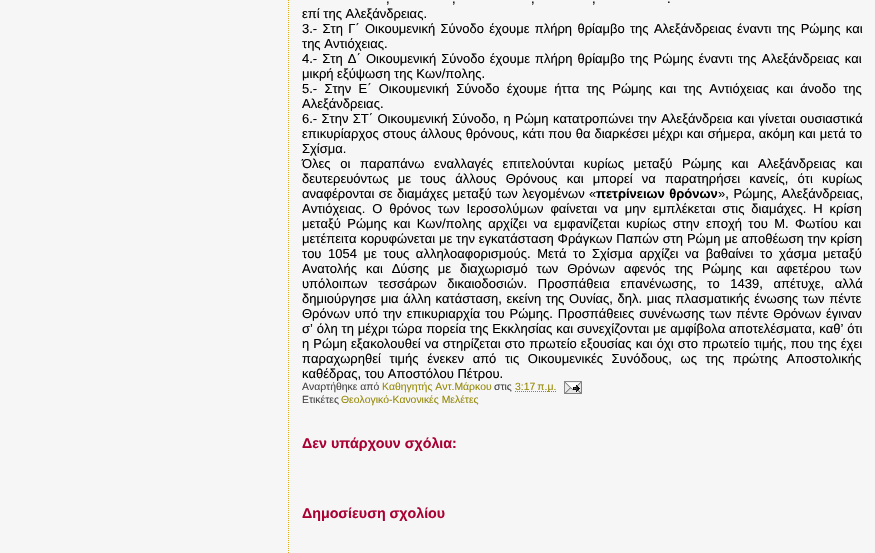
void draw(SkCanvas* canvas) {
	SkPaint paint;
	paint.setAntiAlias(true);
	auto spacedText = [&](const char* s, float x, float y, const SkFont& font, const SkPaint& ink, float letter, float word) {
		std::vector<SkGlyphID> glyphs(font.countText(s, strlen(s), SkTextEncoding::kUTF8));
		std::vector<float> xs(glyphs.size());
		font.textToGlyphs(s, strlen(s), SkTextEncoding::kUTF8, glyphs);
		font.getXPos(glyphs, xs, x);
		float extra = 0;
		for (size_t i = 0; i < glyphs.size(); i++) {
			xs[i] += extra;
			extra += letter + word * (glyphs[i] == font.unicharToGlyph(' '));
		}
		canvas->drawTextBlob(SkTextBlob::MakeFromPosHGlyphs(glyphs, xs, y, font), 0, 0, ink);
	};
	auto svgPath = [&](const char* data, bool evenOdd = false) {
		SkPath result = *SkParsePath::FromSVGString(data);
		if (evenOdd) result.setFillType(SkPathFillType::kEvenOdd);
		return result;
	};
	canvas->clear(0xfff6f6f6);
	paint.setStroke(true);
	paint.setStrokeWidth(1);
	paint.setColor(0xffe0ad12);
	paint.setPathEffect(SkDashPathEffect::Make({{1, 1}}, 0));
	canvas->drawPath(svgPath("M288.5-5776V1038"), paint);
	paint.setPathEffect(nullptr);
	SkFont f1(fontMgr->matchFamilyStyle("Liberation Sans", SkFontStyle::Normal()), 13);
	f1.setSubpixel(true);
	paint.setStroke(false);
	paint.setColor(0xff000000);
	canvas->drawString(",", 386, 3, f1, paint);
	canvas->drawString(",", 452, 3, f1, paint);
	canvas->drawString(",", 531, 3, f1, paint);
	canvas->drawString(",", 592, 3, f1, paint);
	canvas->drawString(".", 667, 3, f1, paint);
	canvas->drawString("επί της Αλεξάνδρειας.", 302, 18, f1, paint);
	spacedText("3.- Στη Γ΄ Οικουμενική Σύνοδο έχουμε πλήρη θρίαμβο της Αλεξάνδρειας έναντι της Ρώμης και", 302, 33, f1, paint, 0, 1.7);
	canvas->drawString("της Αντιόχειας.", 302, 48, f1, paint);
	spacedText("4.- Στη Δ΄ Οικουμενική Σύνοδο έχουμε πλήρη θρίαμβο της Ρώμης έναντι της Αλεξάνδρειας και", 302, 63, f1, paint, 0, 1.5);
	canvas->drawString("μικρή εξύψωση της Κων/πολης.", 302, 78, f1, paint);
	spacedText("5.- Στην Ε΄ Οικουμενική Σύνοδο έχουμε ήττα της Ρώμης και της Αντιόχειας και άνοδο της", 302, 93, f1, paint, 0, 3.6);
	canvas->drawString("Αλεξάνδρειας.", 302, 108, f1, paint);
	spacedText("6.- Στην ΣΤ΄ Οικουμενική Σύνοδο, η Ρώμη κατατροπώνει την Αλεξάνδρεια και γίνεται ουσιαστικά", 302, 123, f1, paint, 0, 0.75);
	spacedText("επικυρίαρχος στους άλλους θρόνους, κάτι που θα διαρκέσει μέχρι και σήμερα, ακόμη και μετά το", 302, 138, f1, paint, 0, 0.4);
	canvas->drawString("Σχίσμα.", 302, 153, f1, paint);
	spacedText("Όλες οι παραπάνω εναλλαγές επιτελούνται κυρίως μεταξύ Ρώμης και Αλεξάνδρειας και", 302, 168, f1, paint, 0, 6);
	spacedText("δευτερευόντως με τους άλλους Θρόνους και μπορεί να παρατηρήσει κανείς, ότι κυρίως", 302, 183, f1, paint, 0, 5.6);
	spacedText("αναφέρονται σε διαμάχες μεταξύ των λεγομένων «", 302, 198, f1, paint, 0, 0.75);
	SkFont f2(fontMgr->matchFamilyStyle("Liberation Sans", SkFontStyle::Bold()), 13);
	f2.setSubpixel(true);
	spacedText("πετρίνειων θρόνων", 596, 198, f2, paint, 0, 0.75);
	spacedText("», Ρώμης, Αλεξάνδρειας,", 718, 198, f1, paint, 0, 1);
	spacedText("Αντιόχειας. Ο θρόνος των Ιεροσολύμων φαίνεται να μην εμπλέκεται στις διαμάχες. Η κρίση", 302, 213, f1, paint, 0, 3.25);
	spacedText("μεταξύ Ρώμης και Κων/πολης αρχίζει να εμφανίζεται κυρίως στην εποχή του Μ. Φωτίου και", 302, 228, f1, paint, 0, 2.75);
	spacedText("μετέπειτα κορυφώνεται με την εγκατάσταση Φράγκων Παπών στη Ρώμη με αποθέωση την κρίση", 302, 243, f1, paint, 0, 0.25);
	spacedText("του 1054 με τους αλληλοαφορισμούς. Μετά το Σχίσμα αρχίζει να βαθαίνει το χάσμα μεταξύ", 302, 258, f1, paint, 0, 3);
	spacedText("Ανατολής και Δύσης με διαχωρισμό των Θρόνων αφενός της Ρώμης και αφετέρου των", 302, 273, f1, paint, 0, 5.25);
	spacedText("υπόλοιπων τεσσάρων δικαιοδοσιών. Προσπάθεια επανένωσης, το 1439, απέτυχε, αλλά", 302, 288, f1, paint, 0, 7);
	spacedText("δημιούργησε μια άλλη κατάσταση, εκείνη της Ουνίας, δηλ. μιας πλασματικής ένωσης των πέντε", 302, 303, f1, paint, 0, 1);
	spacedText("Θρόνων υπό την επικυριαρχία του Ρώμης. Προσπάθειες συνένωσης των πέντε Θρόνων έγιναν", 302, 318, f1, paint, 0, 1.25);
	spacedText("σ’ όλη τη μέχρι τώρα πορεία της Εκκλησίας και συνεχίζονται με αμφίβολα αποτελέσματα, καθ’ ότι", 302, 333, f1, paint, 0, 0.25);
	spacedText("η Ρώμη εξακολουθεί να στηρίζεται στο πρωτείο εξουσίας και όχι στο πρωτείο τιμής, που της έχει", 302, 348, f1, paint, 0, 0.5);
	spacedText("παραχωρηθεί τιμής ένεκεν από τις Οικουμενικές Συνόδους, ως της πρώτης Αποστολικής", 302, 363, f1, paint, 0, 5);
	canvas->drawString("καθέδρας, του Αποστόλου Πέτρου.", 302, 378, f1, paint);
	SkFont f3(fontMgr->matchFamilyStyle("Liberation Sans", SkFontStyle::Normal()), 10.4);
	f3.setSubpixel(true);
	paint.setColor(0xff444444);
	canvas->drawString("Αναρτήθηκε από", 302, 390, f3, paint);
	paint.setColor(0xff968a0a);
	canvas->drawString("Καθηγητής Αντ.Μάρκου", 382, 390, f3, paint);
	paint.setColor(0xff444444);
	canvas->drawString("στις", 494, 390, f3, paint);
	paint.setStroke(true);
	paint.setColor(0xff968a0a);
	paint.setPathEffect(SkDashPathEffect::Make({{1, 1}}, 0));
	canvas->drawPath(svgPath("M515 391.5H556"), paint);
	paint.setPathEffect(nullptr);
	paint.setStroke(false);
	canvas->drawString("3:17 π.μ.", 515, 390, f3, paint);
	canvas->drawImageRect(SkImages::DeferredFromEncodedData(SkData::MakeFromFileName("img1.png")), SkRect::MakeXYWH(564, 381, 18, 13), SkSamplingOptions());
	paint.setColor(0xff444444);
	canvas->drawString("Ετικέτες", 302, 403, f3, paint);
	paint.setColor(0xff968a0a);
	canvas->drawString("Θεολογικό-Κανονικές Μελέτες", 341, 403, f3, paint);
	SkFont f4(fontMgr->matchFamilyStyle("Liberation Sans", SkFontStyle::Bold()), 14.25);
	f4.setSubpixel(true);
	paint.setColor(0xffaa0033);
	canvas->drawString("Δεν υπάρχουν σχόλια:", 302, 448, f4, paint);
	canvas->drawString("Δημοσίευση σχολίου", 302, 518, f4, paint);
}
